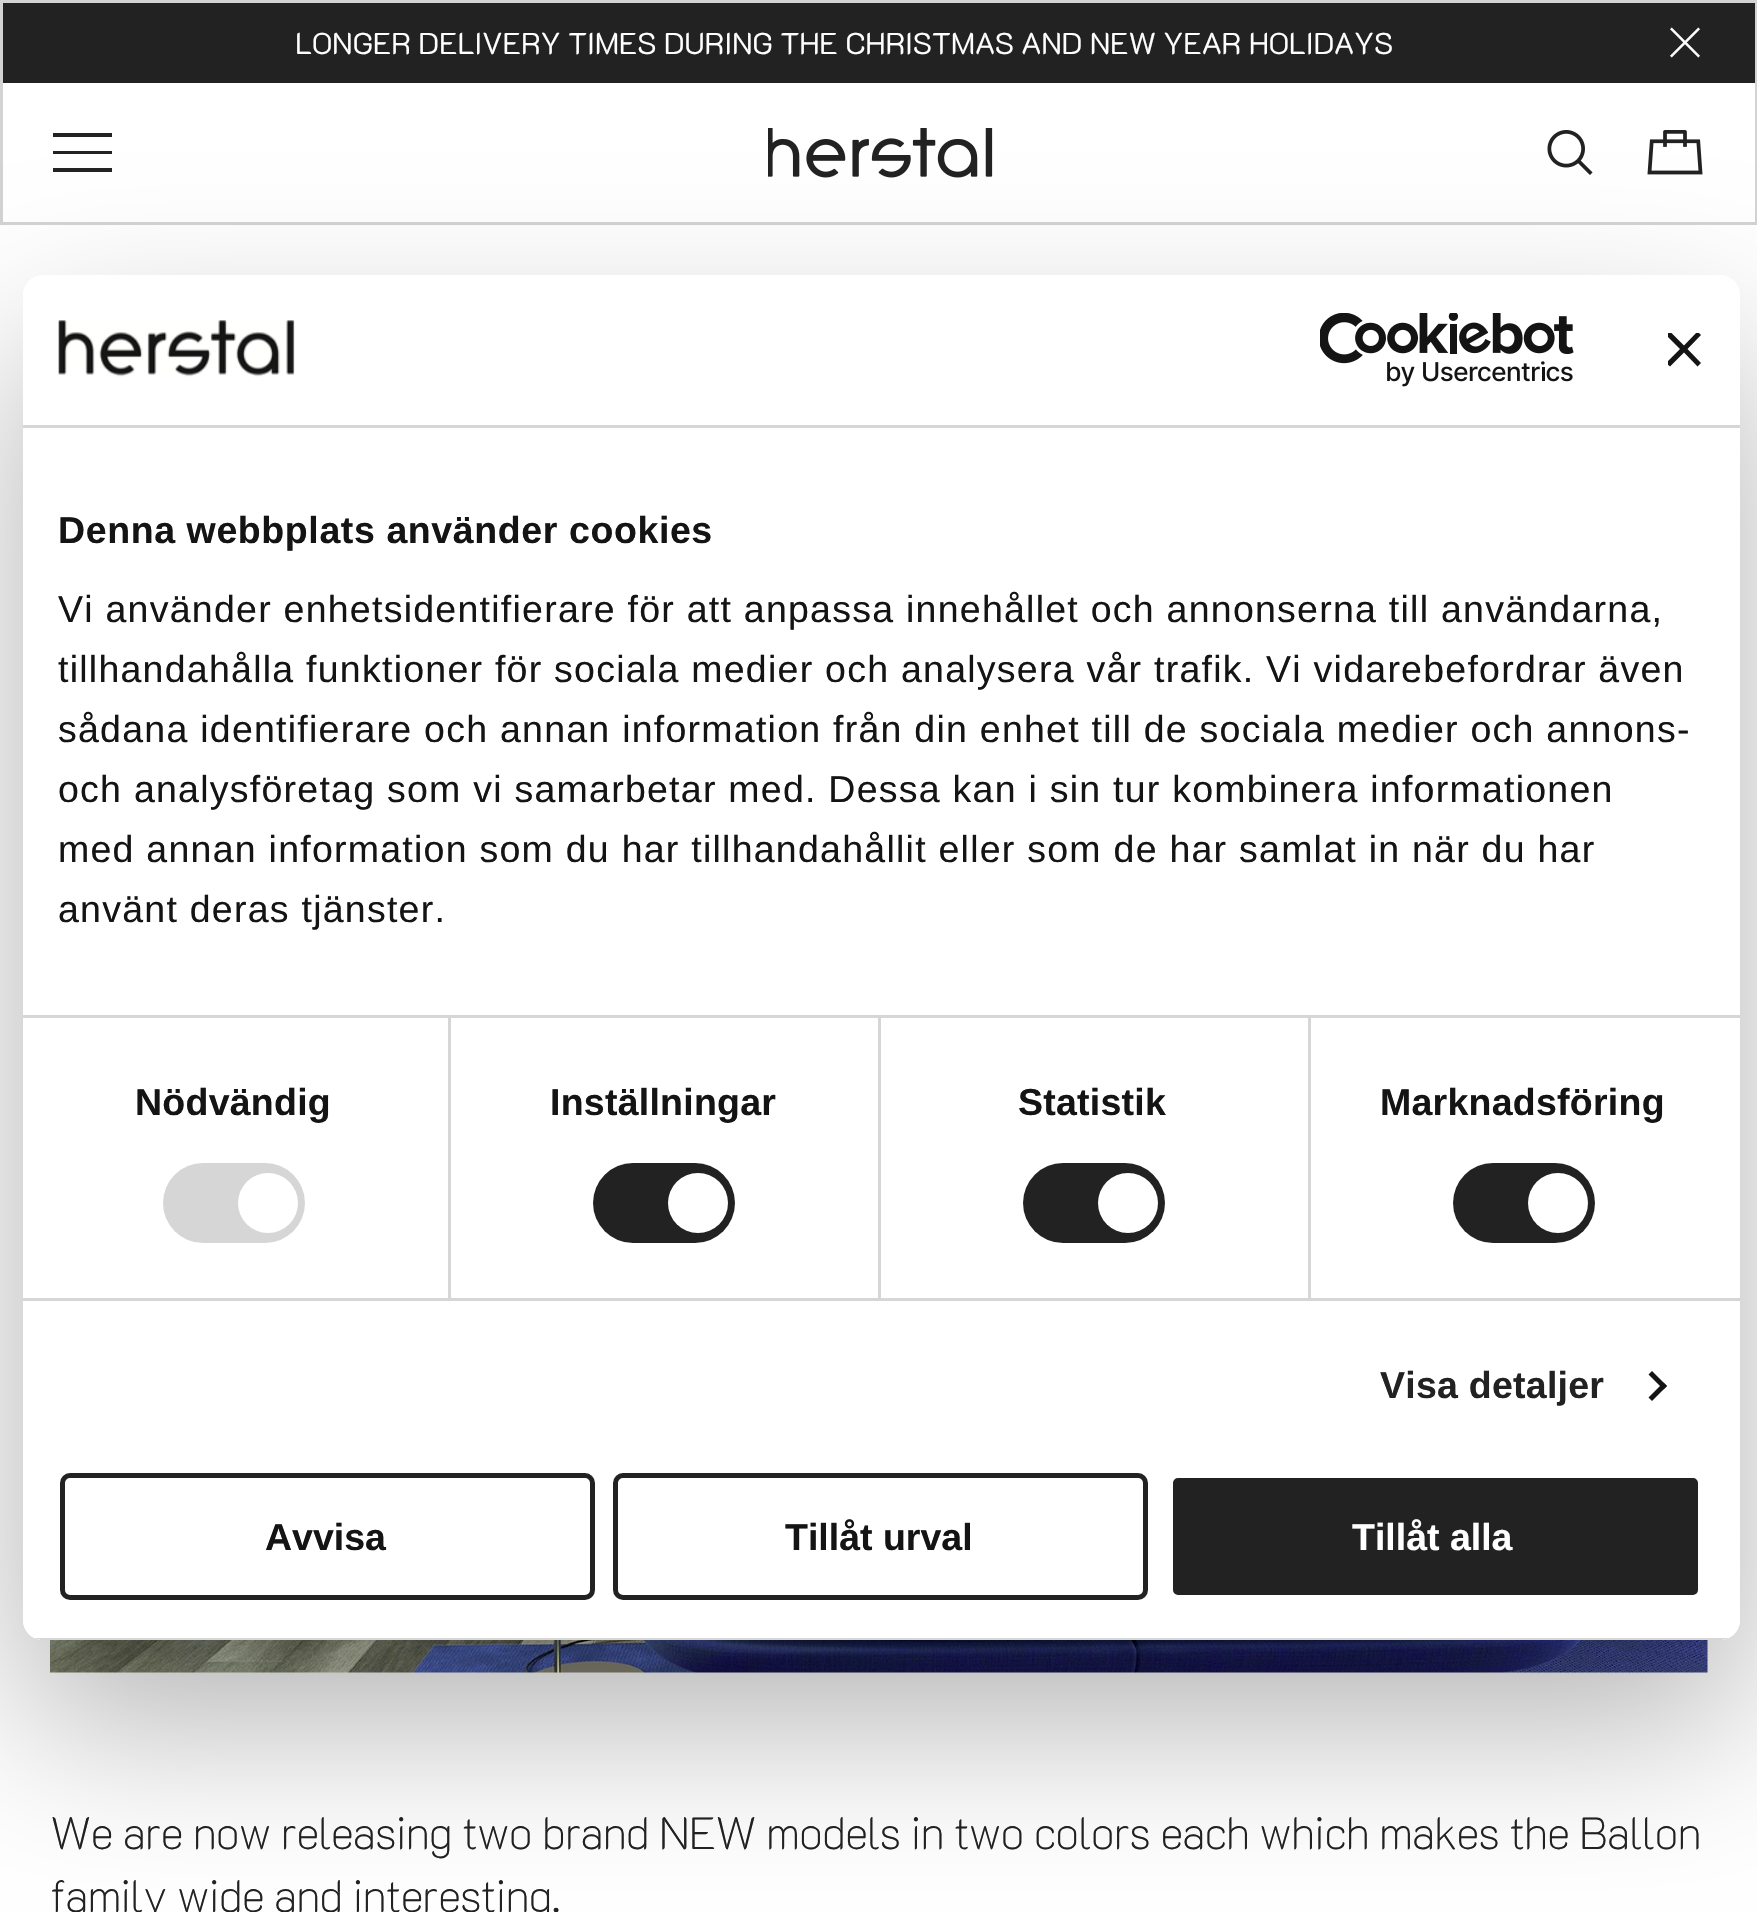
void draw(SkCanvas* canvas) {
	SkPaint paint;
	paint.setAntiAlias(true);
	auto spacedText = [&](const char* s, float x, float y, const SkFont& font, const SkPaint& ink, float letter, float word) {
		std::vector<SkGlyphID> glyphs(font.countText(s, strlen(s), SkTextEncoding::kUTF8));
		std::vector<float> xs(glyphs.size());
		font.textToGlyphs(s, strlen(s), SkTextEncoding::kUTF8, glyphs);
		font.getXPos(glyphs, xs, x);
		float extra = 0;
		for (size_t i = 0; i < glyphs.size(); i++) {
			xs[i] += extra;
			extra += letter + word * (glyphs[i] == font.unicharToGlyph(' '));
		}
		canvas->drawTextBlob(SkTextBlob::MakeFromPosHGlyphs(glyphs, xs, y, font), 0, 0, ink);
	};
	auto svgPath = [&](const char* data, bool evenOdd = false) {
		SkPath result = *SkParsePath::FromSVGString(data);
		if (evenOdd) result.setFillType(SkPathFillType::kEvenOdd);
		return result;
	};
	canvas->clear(0xffffffff);
	paint.setStroke(true);
	paint.setStrokeWidth(3);
	paint.setColor(0xffd3d3d3);
	canvas->drawRect(SkRect::MakeXYWH(1.5, 1.5, 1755, 222), paint);
	paint.setStroke(false);
	paint.setColor(0xff222222);
	canvas->drawRect(SkRect::MakeXYWH(3, 3, 1752, 80), paint);
	SkFont f1(fontMgr->matchFamilyStyle("K2D", SkFontStyle(300, SkFontStyle::kNormal_Width, SkFontStyle::kUpright_Slant)), 30);
	f1.setSubpixel(true);
	paint.setColor(0xffffffff);
	spacedText("LONGER DELIVERY TIMES DURING THE CHRISTMAS AND NEW YEAR HOLIDAYS", 295, 54, f1, paint, -0.3, 0);
	canvas->drawImageRect(SkImages::DeferredFromEncodedData(SkData::MakeFromFileName("img1.png")), SkRect::MakeXYWH(1670, 27, 30, 31), SkSamplingOptions());
	canvas->save();
	canvas->clipRect(SkRect::MakeXYWH(53, 123, 60, 60));
	paint.setColor(0xff222222);
	canvas->drawPath(svgPath("M112 137H52V133H112ZM112 154H52V151H112ZM112 172H52V168H112Z"), paint);
	canvas->restore();
	canvas->drawImageRect(SkImages::DeferredFromEncodedData(SkData::MakeFromFileName("img2.png")), SkRect::MakeXYWH(768, 128, 225, 50), SkSamplingOptions());
	canvas->drawImageRect(SkImages::DeferredFromEncodedData(SkData::MakeFromFileName("img3.png")), SkRect::MakeXYWH(1547, 130, 46, 45), SkSamplingOptions());
	canvas->drawImageRect(SkImages::DeferredFromEncodedData(SkData::MakeFromFileName("img4.png")), SkRect::MakeXYWH(1647, 130, 56, 45), SkSamplingOptions());
	canvas->drawImageRect(SkImages::DeferredFromEncodedData(SkData::MakeFromFileName("img5.png")), SkRect::MakeXYWH(50, 1640, 1658, 33), SkSamplingOptions());
	SkFont f2(fontMgr->matchFamilyStyle("K2D", SkFontStyle(100, SkFontStyle::kNormal_Width, SkFontStyle::kUpright_Slant)), 45);
	f2.setSubpixel(true);
	spacedText("We are now releasing two brand NEW models in two colors each which makes the Ballon", 50, 1849, f2, paint, -1.35, 0);
	spacedText("family wide and interesting.", 50, 1912, f2, paint, -1.35, 0);
	canvas->save();
	canvas->clipPath(svgPath("M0 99H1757V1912H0ZM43 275H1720C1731 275 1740 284 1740 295V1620C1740 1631 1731 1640 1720 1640H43C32 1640 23 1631 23 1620V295C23 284 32 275 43 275Z", true), true);
	paint.setColor(0x4d000000);
	paint.setMaskFilter(SkMaskFilter::MakeBlur(kNormal_SkBlurStyle, 85));
	canvas->drawRoundRect(SkRect::MakeXYWH(23, 355, 1717, 1365), 20, 20, paint);
	paint.setMaskFilter(nullptr);
	canvas->restore();
	paint.setColor(0xffffffff);
	canvas->drawRoundRect(SkRect::MakeXYWH(23, 275, 1717, 1365), 20, 20, paint);
	paint.setColor(0xffd6d6d6);
	canvas->drawRect(SkRect::MakeXYWH(23, 425, 1717, 3), paint);
	canvas->drawImageRect(SkImages::DeferredFromEncodedData(SkData::MakeFromFileName("img6.png")), SkRect::MakeXYWH(58, 320, 237, 57), SkSamplingOptions());
	canvas->drawImageRect(SkImages::DeferredFromEncodedData(SkData::MakeFromFileName("img7.png")), SkRect::MakeXYWH(1320, 313, 254, 74), SkSamplingOptions());
	canvas->save();
	canvas->clipRect(SkRect::MakeXYWH(1668, 333, 35, 35));
	paint.setColor(0xff141414);
	canvas->drawPath(svgPath("M1701 335L1697.5 331.5L1684 345.5L1670 331.5L1666 335L1680 349L1666 363L1670 366.5L1684 352.5L1697.5 366.5L1701 363L1687.5 349Z"), paint);
	canvas->restore();
	paint.setColor(0xffd6d6d6);
	canvas->drawRect(SkRect::MakeXYWH(23, 1015, 1717, 3), paint);
	SkFont f3(fontMgr->matchFamilyStyle("Liberation Sans", SkFontStyle::Bold()), 37.5);
	f3.setSubpixel(true);
	paint.setColor(0xff141414);
	spacedText("Denna webbplats använder cookies", 58, 543, f3, paint, 0.6, 0);
	SkFont f4(fontMgr->matchFamilyStyle("Liberation Sans", SkFontStyle::Normal()), 37.5);
	f4.setSubpixel(true);
	spacedText("Vi använder enhetsidentifierare för att anpassa innehållet och annonserna till användarna,", 58, 622, f4, paint, 1.25, 0);
	spacedText("tillhandahålla funktioner för sociala medier och analysera vår trafik. Vi vidarebefordrar även", 58, 682, f4, paint, 1.25, 0);
	spacedText("sådana identifierare och annan information från din enhet till de sociala medier och annons-", 58, 742, f4, paint, 1.25, 0);
	spacedText("och analysföretag som vi samarbetar med. Dessa kan i sin tur kombinera informationen", 58, 802, f4, paint, 1.25, 0);
	spacedText("med annan information som du har tillhandahållit eller som de har samlat in när du har", 58, 862, f4, paint, 1.25, 0);
	spacedText("använt deras tjänster.", 58, 922, f4, paint, 1.25, 0);
	paint.setColor(0xffd6d6d6);
	canvas->drawRect(SkRect::MakeXYWH(23, 1298, 1717, 3), paint);
	canvas->drawRect(SkRect::MakeXYWH(448, 1018, 3, 280), paint);
	paint.setColor(0xff141414);
	spacedText("Nödvändig", 135, 1115, f3, paint, 0.25, 0);
	paint.setColor(0xffd6d6d6);
	canvas->drawRoundRect(SkRect::MakeXYWH(163, 1163, 142, 80), 40, 40, paint);
	paint.setColor(0xffffffff);
	canvas->drawCircle(268, 1203, 30, paint);
	paint.setColor(0xffd6d6d6);
	canvas->drawRect(SkRect::MakeXYWH(878, 1018, 3, 280), paint);
	paint.setColor(0xff141414);
	spacedText("Inställningar", 550, 1115, f3, paint, 0.25, 0);
	paint.setColor(0xff222222);
	canvas->drawRoundRect(SkRect::MakeXYWH(593, 1163, 142, 80), 40, 40, paint);
	paint.setColor(0xffffffff);
	canvas->drawCircle(698, 1203, 30, paint);
	paint.setColor(0xffd6d6d6);
	canvas->drawRect(SkRect::MakeXYWH(1308, 1018, 3, 280), paint);
	paint.setColor(0xff141414);
	spacedText("Statistik", 1018, 1115, f3, paint, 0.25, 0);
	paint.setColor(0xff222222);
	canvas->drawRoundRect(SkRect::MakeXYWH(1023, 1163, 142, 80), 40, 40, paint);
	paint.setColor(0xffffffff);
	canvas->drawCircle(1128, 1203, 30, paint);
	paint.setColor(0xff141414);
	spacedText("Marknadsföring", 1380, 1115, f3, paint, 0.25, 0);
	paint.setColor(0xff222222);
	canvas->drawRoundRect(SkRect::MakeXYWH(1453, 1163, 142, 80), 40, 40, paint);
	paint.setColor(0xffffffff);
	canvas->drawCircle(1558, 1203, 30, paint);
	paint.setColor(0xff222222);
	spacedText("Visa detaljer", 1380, 1398, f3, paint, 0.25, 0);
	paint.setColor(0xff141414);
	canvas->drawPath(svgPath("M1652 1371L1667 1386L1663.5 1389.5L1648.5 1374.5Z"), paint);
	canvas->drawPath(svgPath("M1663.5 1382.5L1667 1386L1652 1401L1648.5 1397.5Z"), paint);
	canvas->save();
	canvas->clipPath(svgPath("M43 275H1720C1731 275 1740 284 1740 295V1620C1740 1631 1731 1640 1720 1640H43C32 1640 23 1631 23 1620V295C23 284 32 275 43 275Z"), true);
	paint.setColor(0xffd6d6d6);
	canvas->drawRect(SkRect::MakeXYWH(34, 1638, 1695, 2), paint);
	canvas->restore();
	paint.setStroke(true);
	paint.setStrokeWidth(5);
	paint.setColor(0xff222222);
	canvas->drawRoundRect(SkRect::MakeXYWH(62.5, 1475.5, 530, 122), 7.5, 7.5, paint);
	paint.setStroke(false);
	paint.setColor(0xff141414);
	canvas->drawString("Avvisa", 265, 1550, f3, paint);
	paint.setStroke(true);
	paint.setColor(0xff222222);
	canvas->drawRoundRect(SkRect::MakeXYWH(615.5, 1475.5, 530, 122), 7.5, 7.5, paint);
	paint.setStroke(false);
	paint.setColor(0xff141414);
	canvas->drawString("Tillåt urval", 785, 1550, f3, paint);
	paint.setColor(0xff222222);
	canvas->drawRoundRect(SkRect::MakeXYWH(1170.5, 1475.5, 530, 122), 7.5, 7.5, paint);
	paint.setStroke(true);
	paint.setColor(0xffffffff);
	canvas->drawRoundRect(SkRect::MakeXYWH(1170.5, 1475.5, 530, 122), 7.5, 7.5, paint);
	paint.setStroke(false);
	canvas->drawString("Tillåt alla", 1352, 1550, f3, paint);
}
